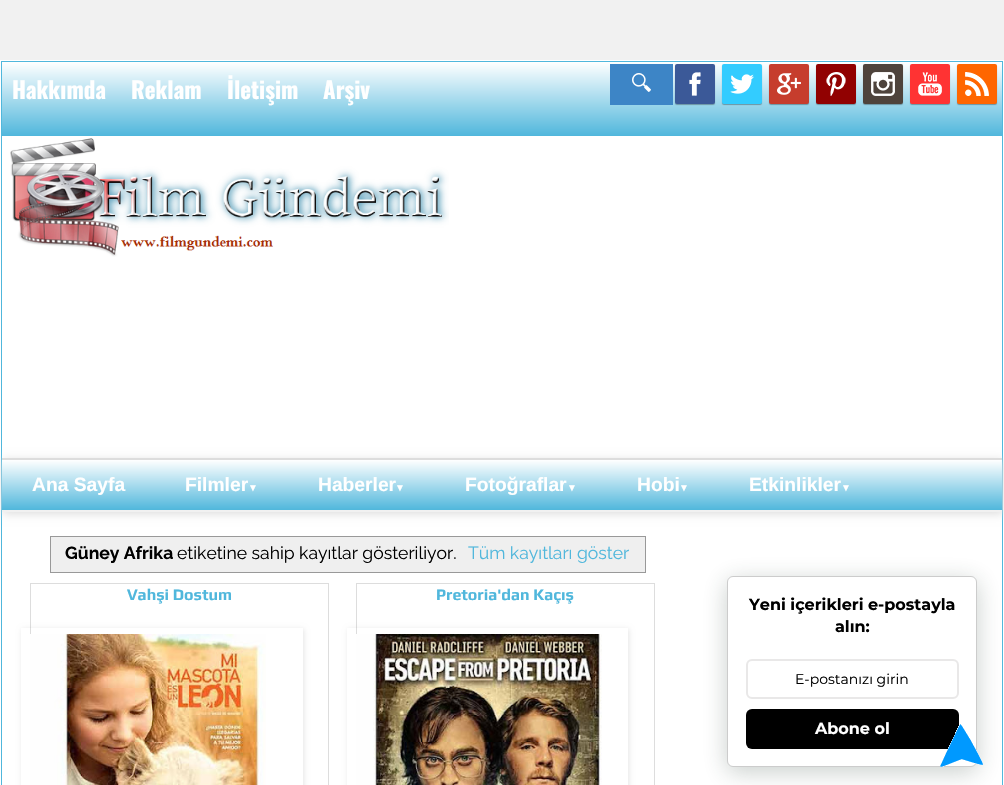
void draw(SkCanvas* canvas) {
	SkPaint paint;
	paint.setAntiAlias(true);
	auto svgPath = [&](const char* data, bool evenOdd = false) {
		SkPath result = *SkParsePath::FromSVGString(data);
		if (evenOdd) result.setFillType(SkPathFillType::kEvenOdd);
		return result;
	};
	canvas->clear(0xfff1f1f1);
	paint.setStroke(true);
	paint.setStrokeWidth(1);
	paint.setColor(0xffffffff);
	canvas->drawRect(SkRect::MakeXYWH(0.5, 60.5, 1003, 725), paint);
	paint.setStroke(false);
	canvas->drawRect(SkRect::MakeXYWH(2, 136, 1000, 649), paint);
	paint.setStroke(true);
	paint.setColor(0xff50b7dc);
	canvas->drawRect(SkRect::MakeXYWH(1.5, 61.5, 1001, 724), paint);
	paint.setStroke(false);
	{
		const SkColor colors[] = {0xffffffff, 0xff50b7dc};
		const float stops[] = {0, 1};
		const SkPoint ends[] = {{502, 62}, {502, 136}};
		paint.setShader(SkGradientShader::MakeLinear(ends, colors, stops, 2, SkTileMode::kClamp));
		paint.setAlpha(255);
	}
	canvas->drawRect(SkRect::MakeXYWH(2, 62, 1000, 74), paint);
	SkFont f1(fontMgr->matchFamilyStyle("Oswald", SkFontStyle::Bold()), 23);
	f1.setSubpixel(true);
	paint.setShader(nullptr);
	paint.setColor(0xffffffff);
	canvas->drawString("Hakkımda", 12, 99, f1, paint);
	canvas->drawString("Reklam", 131, 99, f1, paint);
	canvas->drawString("İletişim", 227, 99, f1, paint);
	canvas->drawString("Arşiv", 323, 99, f1, paint);
	paint.setColor(0xff3d85c6);
	canvas->drawRect(SkRect::MakeXYWH(610, 64, 63, 41), paint);
	canvas->drawImageRect(SkImages::DeferredFromEncodedData(SkData::MakeFromFileName("img1.png")), SkRect::MakeXYWH(632, 73, 19, 19), SkSamplingOptions());
	paint.setColor(0x4d000000);
	paint.setMaskFilter(SkMaskFilter::MakeBlur(kNormal_SkBlurStyle, 0.5));
	canvas->drawRoundRect(SkRect::MakeXYWH(675, 65, 40, 40), 2, 2, paint);
	paint.setMaskFilter(nullptr);
	paint.setColor(0xff3b5998);
	canvas->drawRoundRect(SkRect::MakeXYWH(675, 64, 40, 40), 2, 2, paint);
	canvas->drawImageRect(SkImages::DeferredFromEncodedData(SkData::MakeFromFileName("img2.png")), SkRect::MakeXYWH(689, 72, 12, 24), SkSamplingOptions());
	paint.setColor(0x4d000000);
	paint.setMaskFilter(SkMaskFilter::MakeBlur(kNormal_SkBlurStyle, 0.5));
	canvas->drawRoundRect(SkRect::MakeXYWH(722, 65, 40, 40), 2, 2, paint);
	paint.setMaskFilter(nullptr);
	paint.setColor(0xff33ccff);
	canvas->drawRoundRect(SkRect::MakeXYWH(722, 64, 40, 40), 2, 2, paint);
	canvas->drawImageRect(SkImages::DeferredFromEncodedData(SkData::MakeFromFileName("img3.png")), SkRect::MakeXYWH(730, 74, 24, 20), SkSamplingOptions());
	paint.setColor(0x4d000000);
	paint.setMaskFilter(SkMaskFilter::MakeBlur(kNormal_SkBlurStyle, 0.5));
	canvas->drawRoundRect(SkRect::MakeXYWH(769, 65, 40, 40), 2, 2, paint);
	paint.setMaskFilter(nullptr);
	paint.setColor(0xffc63d2d);
	canvas->drawRoundRect(SkRect::MakeXYWH(769, 64, 40, 40), 2, 2, paint);
	canvas->drawImageRect(SkImages::DeferredFromEncodedData(SkData::MakeFromFileName("img4.png")), SkRect::MakeXYWH(777, 73, 24, 22), SkSamplingOptions());
	paint.setColor(0x4d000000);
	paint.setMaskFilter(SkMaskFilter::MakeBlur(kNormal_SkBlurStyle, 0.5));
	canvas->drawRoundRect(SkRect::MakeXYWH(816, 65, 40, 40), 2, 2, paint);
	paint.setMaskFilter(nullptr);
	paint.setColor(0xff910101);
	canvas->drawRoundRect(SkRect::MakeXYWH(816, 64, 40, 40), 2, 2, paint);
	canvas->drawImageRect(SkImages::DeferredFromEncodedData(SkData::MakeFromFileName("img5.png")), SkRect::MakeXYWH(826, 72, 20, 24), SkSamplingOptions());
	paint.setColor(0x4d000000);
	paint.setMaskFilter(SkMaskFilter::MakeBlur(kNormal_SkBlurStyle, 0.5));
	canvas->drawRoundRect(SkRect::MakeXYWH(863, 65, 40, 40), 2, 2, paint);
	paint.setMaskFilter(nullptr);
	paint.setColor(0xff4e433c);
	canvas->drawRoundRect(SkRect::MakeXYWH(863, 64, 40, 40), 2, 2, paint);
	canvas->drawImageRect(SkImages::DeferredFromEncodedData(SkData::MakeFromFileName("img6.png")), SkRect::MakeXYWH(871, 72, 24, 24), SkSamplingOptions());
	paint.setColor(0x4d000000);
	paint.setMaskFilter(SkMaskFilter::MakeBlur(kNormal_SkBlurStyle, 0.5));
	canvas->drawRoundRect(SkRect::MakeXYWH(910, 65, 40, 40), 2, 2, paint);
	paint.setMaskFilter(nullptr);
	paint.setColor(0xffff3333);
	canvas->drawRoundRect(SkRect::MakeXYWH(910, 64, 40, 40), 2, 2, paint);
	canvas->drawImageRect(SkImages::DeferredFromEncodedData(SkData::MakeFromFileName("img7.png")), SkRect::MakeXYWH(918, 72, 24, 24), SkSamplingOptions());
	paint.setColor(0x4d000000);
	paint.setMaskFilter(SkMaskFilter::MakeBlur(kNormal_SkBlurStyle, 0.5));
	canvas->drawRoundRect(SkRect::MakeXYWH(957, 65, 40, 40), 2, 2, paint);
	paint.setMaskFilter(nullptr);
	paint.setColor(0xffff6600);
	canvas->drawRoundRect(SkRect::MakeXYWH(957, 64, 40, 40), 2, 2, paint);
	canvas->drawImageRect(SkImages::DeferredFromEncodedData(SkData::MakeFromFileName("img8.png")), SkRect::MakeXYWH(965, 72, 24, 24), SkSamplingOptions());
	canvas->drawImageRect(SkImages::DeferredFromEncodedData(SkData::MakeFromFileName("img9.png")), SkRect::MakeXYWH(10, 138, 439, 119), SkSamplingOptions());
	paint.setColor(0xffdddddd);
	paint.setMaskFilter(SkMaskFilter::MakeBlur(kNormal_SkBlurStyle, 4.5));
	canvas->drawRect(SkRect::MakeXYWH(3, 460, 1000, 54), paint);
	paint.setMaskFilter(nullptr);
	{
		const SkColor colors[] = {0xffffffff, 0xff50b7dc};
		const float stops[] = {0, 1};
		const SkPoint ends[] = {{502, 460}, {502, 510}};
		paint.setShader(SkGradientShader::MakeLinear(ends, colors, stops, 2, SkTileMode::kClamp));
		paint.setAlpha(255);
	}
	canvas->drawRect(SkRect::MakeXYWH(2, 460, 1000, 50), paint);
	paint.setShader(nullptr);
	paint.setColor(0xffdddddd);
	canvas->drawRect(SkRect::MakeXYWH(2, 458, 1000, 2), paint);
	paint.setColor(0xfff1f1f1);
	canvas->drawRect(SkRect::MakeXYWH(2, 510, 1000, 2), paint);
	SkFont f2(fontMgr->matchFamilyStyle("Liberation Sans", SkFontStyle::Bold()), 19.25);
	f2.setSubpixel(true);
	paint.setColor(0xffffffff);
	canvas->drawString("Ana Sayfa", 32, 491, f2, paint);
	canvas->drawString("Filmler", 185, 491, f2, paint);
	SkFont f3(fontMgr->matchFamilyStyle("Liberation Sans", SkFontStyle::Bold()), 10);
	f3.setSubpixel(true);
	canvas->drawString("▼", 248, 491, f3, paint);
	canvas->drawString("Haberler", 318, 491, f2, paint);
	canvas->drawString("▼", 395, 491, f3, paint);
	canvas->drawString("Fotoğraflar", 465, 491, f2, paint);
	canvas->drawString("▼", 567, 491, f3, paint);
	canvas->drawString("Hobi", 637, 491, f2, paint);
	canvas->drawString("▼", 679, 491, f3, paint);
	canvas->drawString("Etkinlikler", 749, 491, f2, paint);
	canvas->drawString("▼", 841, 491, f3, paint);
	paint.setStroke(true);
	paint.setColor(0xff999999);
	canvas->drawRect(SkRect::MakeXYWH(50.5, 536.5, 595, 36), paint);
	paint.setStroke(false);
	paint.setColor(0xffefefef);
	canvas->drawRect(SkRect::MakeXYWH(51, 537, 594, 35), paint);
	SkFont f4(fontMgr->matchFamilyStyle("Raleway", SkFontStyle::Bold()), 17.6);
	f4.setSubpixel(true);
	paint.setColor(0xff000000);
	canvas->drawString("Güney Afrika", 65, 559, f4, paint);
	SkFont f5(fontMgr->matchFamilyStyle("Raleway", SkFontStyle::Normal()), 17.6);
	f5.setSubpixel(true);
	canvas->drawString("etiketine sahip kayıtlar gösteriliyor.", 177, 559, f5, paint);
	paint.setColor(0xff50b7dc);
	canvas->drawString("Tüm kayıtları göster", 468, 559, f5, paint);
	paint.setStroke(true);
	paint.setColor(0xffdddddd);
	canvas->drawRect(SkRect::MakeXYWH(30.5, 583.5, 298, 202), paint);
	SkFont f6(fontMgr->matchFamilyStyle("Play", SkFontStyle::Bold()), 16);
	f6.setSubpixel(true);
	paint.setStroke(false);
	paint.setColor(0xff50b7dc);
	canvas->drawString("Vahşi Dostum", 127, 600, f6, paint);
	canvas->save();
	canvas->clipPath(svgPath("M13 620H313V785H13ZM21 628H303V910H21Z", true), true);
	paint.setColor(0x1a000000);
	paint.setMaskFilter(SkMaskFilter::MakeBlur(kNormal_SkBlurStyle, 2.5));
	canvas->drawRect(SkRect::MakeXYWH(22, 629, 282, 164), paint);
	paint.setMaskFilter(nullptr);
	canvas->restore();
	canvas->drawImageRect(SkImages::DeferredFromEncodedData(SkData::MakeFromFileName("img10.png")), SkRect::MakeXYWH(30, 634, 236, 151), SkSamplingOptions());
	paint.setStroke(true);
	paint.setColor(0xffdddddd);
	canvas->drawRect(SkRect::MakeXYWH(356.5, 583.5, 298, 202), paint);
	paint.setStroke(false);
	paint.setColor(0xff50b7dc);
	canvas->drawString("Pretoria'dan Kaçış", 436, 600, f6, paint);
	canvas->save();
	canvas->clipPath(svgPath("M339 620H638V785H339ZM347 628H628V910H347Z", true), true);
	paint.setColor(0x1a000000);
	paint.setMaskFilter(SkMaskFilter::MakeBlur(kNormal_SkBlurStyle, 2.5));
	canvas->drawRect(SkRect::MakeXYWH(348, 629, 281, 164), paint);
	paint.setMaskFilter(nullptr);
	canvas->restore();
	canvas->drawImageRect(SkImages::DeferredFromEncodedData(SkData::MakeFromFileName("img11.png")), SkRect::MakeXYWH(356, 634, 246, 151), SkSamplingOptions());
	paint.setColor(0x40223c2f);
	paint.setMaskFilter(SkMaskFilter::MakeBlur(kNormal_SkBlurStyle, 12.5));
	canvas->drawRoundRect(SkRect::MakeXYWH(727, 581, 250, 191), 6, 6, paint);
	paint.setMaskFilter(nullptr);
	paint.setColor(0xffffffff);
	canvas->drawRoundRect(SkRect::MakeXYWH(727.5, 576.5, 249, 190), 5.5, 5.5, paint);
	paint.setStroke(true);
	paint.setColor(0xffcccccc);
	canvas->drawRoundRect(SkRect::MakeXYWH(727.5, 576.5, 249, 190), 5.5, 5.5, paint);
	SkFont f7(fontMgr->matchFamilyStyle("Montserrat", SkFontStyle(100, SkFontStyle::kNormal_Width, SkFontStyle::kUpright_Slant)), 16);
	f7.setSubpixel(true);
	paint.setStroke(false);
	paint.setColor(0xff000000);
	canvas->drawString("Yeni içerikleri e-postayla", 749, 610, f7, paint);
	canvas->drawString("alın:", 835, 632, f7, paint);
	paint.setStroke(true);
	paint.setStrokeWidth(2);
	paint.setColor(0xffe9e8e8);
	canvas->drawRoundRect(SkRect::MakeXYWH(747, 660, 211, 38), 5, 5, paint);
	SkFont f8(fontMgr->matchFamilyStyle("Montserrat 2", SkFontStyle(100, SkFontStyle::kNormal_Width, SkFontStyle::kUpright_Slant)), 14);
	f8.setSubpixel(true);
	paint.setStroke(false);
	paint.setColor(0xff000000);
	canvas->drawString("E-postanızı girin", 795, 684, f8, paint);
	canvas->drawRoundRect(SkRect::MakeXYWH(746, 709, 213, 40), 6, 6, paint);
	paint.setColor(0xffffffff);
	canvas->drawString("Abone ol", 815, 734, f7, paint);
	canvas->drawImageRect(SkImages::DeferredFromEncodedData(SkData::MakeFromFileName("img12.png")), SkRect::MakeXYWH(940, 724, 43, 43), SkSamplingOptions());
}
